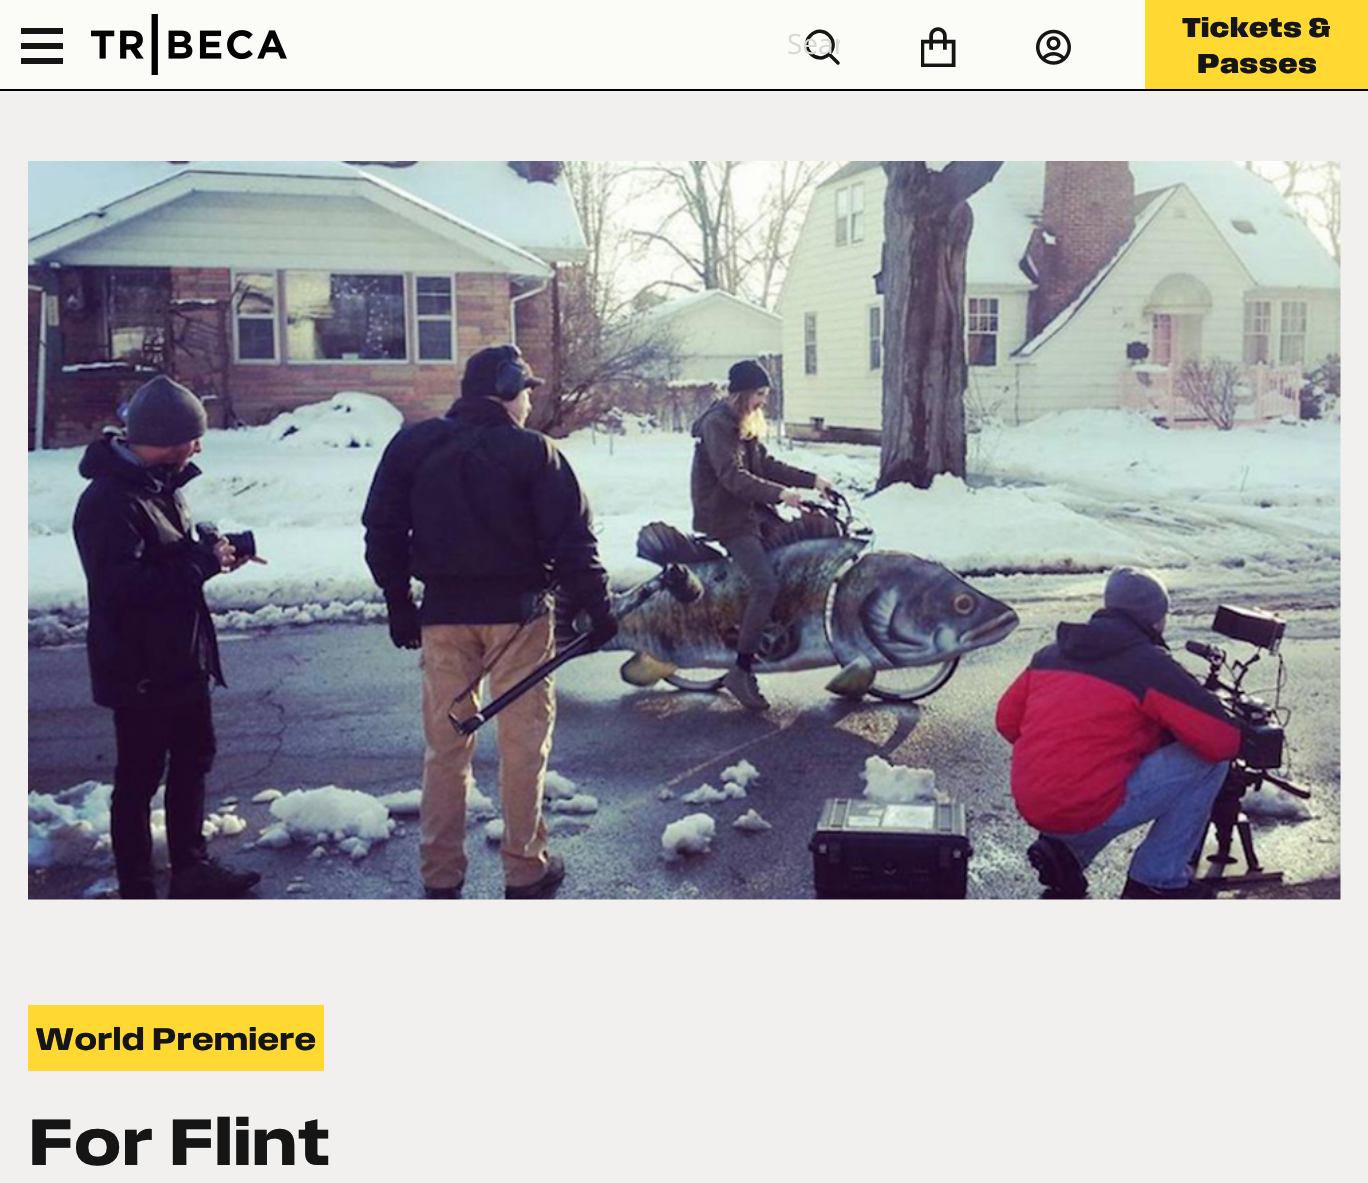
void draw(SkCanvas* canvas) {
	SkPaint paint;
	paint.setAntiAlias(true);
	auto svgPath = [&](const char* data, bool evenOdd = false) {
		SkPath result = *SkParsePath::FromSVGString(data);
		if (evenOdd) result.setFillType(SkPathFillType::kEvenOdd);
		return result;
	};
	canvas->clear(0xfff1f0ee);
	paint.setColor(0xfffbfcf8);
	canvas->drawRect(SkRect::MakeXYWH(0, 0, 1145, 89), paint);
	paint.setColor(0xff000000);
	canvas->drawRect(SkRect::MakeXYWH(0, 89, 1368, 2), paint);
	paint.setColor(0xff151515);
	canvas->drawPath(svgPath("M21 28H63V34H21ZM21 43H63V49H21ZM63 58V64H21V58Z"), paint);
	canvas->drawImageRect(SkImages::DeferredFromEncodedData(SkData::MakeFromFileName("img1.png")), SkRect::MakeXYWH(91, 14, 196, 61), SkSamplingOptions());
	paint.setStroke(true);
	paint.setStrokeWidth(3.5);
	paint.setStrokeCap(SkPaint::kRound_Cap);
	paint.setStrokeJoin(SkPaint::kRound_Join);
	canvas->drawPath(svgPath("M838 63L829 54M829 54C841.5 41.5 823 23 810.5 35.5C798.5 47.5 817 66 829 54Z"), paint);
	canvas->save();
	canvas->clipRect(SkRect::MakeXYWH(788, 25, 52, 36));
	SkFont f1(fontMgr->matchFamilyStyle("Open Sans", SkFontStyle::Normal()), 28);
	f1.setSubpixel(true);
	paint.setStroke(false);
	paint.setColor(0xffd8d9d5);
	canvas->drawString("Sear", 787, 54, f1, paint);
	canvas->restore();
	canvas->drawImageRect(SkImages::DeferredFromEncodedData(SkData::MakeFromFileName("img2.png")), SkRect::MakeXYWH(921, 27, 35, 40), SkSamplingOptions());
	canvas->drawImageRect(SkImages::DeferredFromEncodedData(SkData::MakeFromFileName("img3.png")), SkRect::MakeXYWH(1036, 29, 35, 36), SkSamplingOptions());
	paint.setColor(0xffffd932);
	canvas->drawRect(SkRect::MakeXYWH(1145, 0, 223, 89), paint);
	SkFont f2(fontMgr->matchFamilyStyle("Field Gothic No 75", SkFontStyle::Bold()), 28.5);
	f2.setSubpixel(true);
	paint.setColor(0xff151515);
	canvas->drawString("Tickets &", 1182, 37, f2, paint);
	canvas->drawString("Passes", 1197, 73, f2, paint);
	canvas->drawImageRect(SkImages::DeferredFromEncodedData(SkData::MakeFromFileName("img4.png")), SkRect::MakeXYWH(28, 161, 1313, 739), SkSamplingOptions());
	paint.setColor(0xffffd932);
	canvas->drawRect(SkRect::MakeXYWH(28, 1005, 296, 66), paint);
	SkFont f3(fontMgr->matchFamilyStyle("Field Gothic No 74", SkFontStyle(600, SkFontStyle::kNormal_Width, SkFontStyle::kUpright_Slant)), 32.75);
	f3.setSubpixel(true);
	paint.setColor(0xff151515);
	canvas->drawString("World Premiere", 35, 1050, f3, paint);
	SkFont f4(fontMgr->matchFamilyStyle("Field Gothic No 74", SkFontStyle(600, SkFontStyle::kNormal_Width, SkFontStyle::kUpright_Slant)), 68.5);
	f4.setSubpixel(true);
	canvas->drawString("For Flint", 28, 1165, f4, paint);
}
